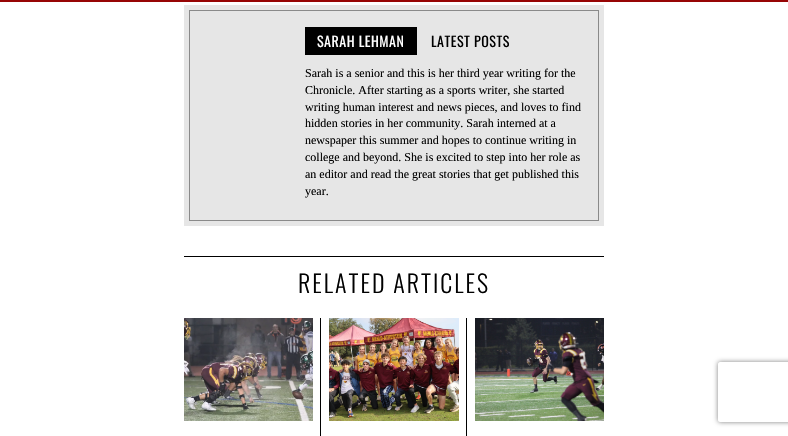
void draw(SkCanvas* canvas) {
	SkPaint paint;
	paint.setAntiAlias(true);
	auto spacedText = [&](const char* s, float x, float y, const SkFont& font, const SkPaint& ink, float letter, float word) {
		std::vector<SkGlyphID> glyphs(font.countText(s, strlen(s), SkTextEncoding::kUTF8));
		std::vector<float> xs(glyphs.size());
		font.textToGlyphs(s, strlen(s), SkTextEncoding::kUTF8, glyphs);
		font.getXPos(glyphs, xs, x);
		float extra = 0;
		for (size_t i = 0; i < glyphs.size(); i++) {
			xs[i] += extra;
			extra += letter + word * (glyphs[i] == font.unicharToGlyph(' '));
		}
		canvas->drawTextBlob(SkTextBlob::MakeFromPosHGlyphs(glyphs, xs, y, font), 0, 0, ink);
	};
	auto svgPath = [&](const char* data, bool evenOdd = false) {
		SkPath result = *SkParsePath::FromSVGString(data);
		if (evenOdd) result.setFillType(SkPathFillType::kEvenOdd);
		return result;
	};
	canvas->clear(0xffffffff);
	paint.setColor(0xff970505);
	canvas->drawRect(SkRect::MakeXYWH(0, 0, 788, 2), paint);
	paint.setColor(0xffe6e6e6);
	canvas->drawRect(SkRect::MakeXYWH(184, 5, 420, 221), paint);
	paint.setStroke(true);
	paint.setStrokeWidth(1);
	paint.setColor(0xff8a8a8a);
	canvas->drawRect(SkRect::MakeXYWH(189.5, 10.5, 409, 210), paint);
	paint.setStroke(false);
	paint.setColor(0xff000000);
	canvas->drawRect(SkRect::MakeXYWH(305, 27, 112, 28), paint);
	SkFont f1(fontMgr->matchFamilyStyle("Oswald", SkFontStyle::Normal()), 14);
	f1.setSubpixel(true);
	paint.setColor(0xffffffff);
	spacedText("SARAH LEHMAN", 317, 47, f1, paint, 0.5, 0);
	paint.setColor(0xff000000);
	spacedText("LATEST POSTS", 431, 47, f1, paint, 0.5, 0);
	SkFont f2(fontMgr->matchFamilyStyle("Liberation Serif", SkFontStyle::Normal()), 12);
	f2.setSubpixel(true);
	canvas->drawString("Sarah is a senior and this is her third year writing for the", 305, 77, f2, paint);
	canvas->drawString("Chronicle. After starting as a sports writer, she started", 305, 94, f2, paint);
	canvas->drawString("writing human interest and news pieces, and loves to find", 305, 111, f2, paint);
	canvas->drawString("hidden stories in her community. Sarah interned at a", 305, 127, f2, paint);
	canvas->drawString("newspaper this summer and hopes to continue writing in", 305, 144, f2, paint);
	canvas->drawString("college and beyond. She is excited to step into her role as", 305, 161, f2, paint);
	canvas->drawString("an editor and read the great stories that get published this", 305, 178, f2, paint);
	canvas->drawString("year.", 305, 195, f2, paint);
	canvas->drawRect(SkRect::MakeXYWH(184, 256, 420, 1), paint);
	SkFont f3(fontMgr->matchFamilyStyle("Oswald", SkFontStyle(300, SkFontStyle::kNormal_Width, SkFontStyle::kUpright_Slant)), 24);
	f3.setSubpixel(true);
	spacedText("RELATED ARTICLES", 298, 293, f3, paint, 2, 0);
	canvas->drawImageRect(SkImages::DeferredFromEncodedData(SkData::MakeFromFileName("img1.png")), SkRect::MakeXYWH(184, 318, 129, 103), SkSamplingOptions());
	canvas->drawRect(SkRect::MakeXYWH(320, 318, 1, 118), paint);
	canvas->drawRect(SkRect::MakeXYWH(466, 318, 1, 118), paint);
	canvas->drawImageRect(SkImages::DeferredFromEncodedData(SkData::MakeFromFileName("img2.png")), SkRect::MakeXYWH(329, 318, 130, 103), SkSamplingOptions());
	canvas->drawImageRect(SkImages::DeferredFromEncodedData(SkData::MakeFromFileName("img3.png")), SkRect::MakeXYWH(475, 318, 129, 103), SkSamplingOptions());
	canvas->save();
	canvas->clipPath(svgPath("M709 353H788V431H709ZM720 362H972C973 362 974 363 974 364V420C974 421 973 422 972 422H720C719 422 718 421 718 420V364C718 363 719 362 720 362Z", true), true);
	paint.setColor(0xff808080);
	paint.setMaskFilter(SkMaskFilter::MakeBlur(kNormal_SkBlurStyle, 2.5));
	canvas->drawRoundRect(SkRect::MakeXYWH(718, 362, 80, 60), 2, 2, paint);
	paint.setMaskFilter(nullptr);
	canvas->restore();
}
